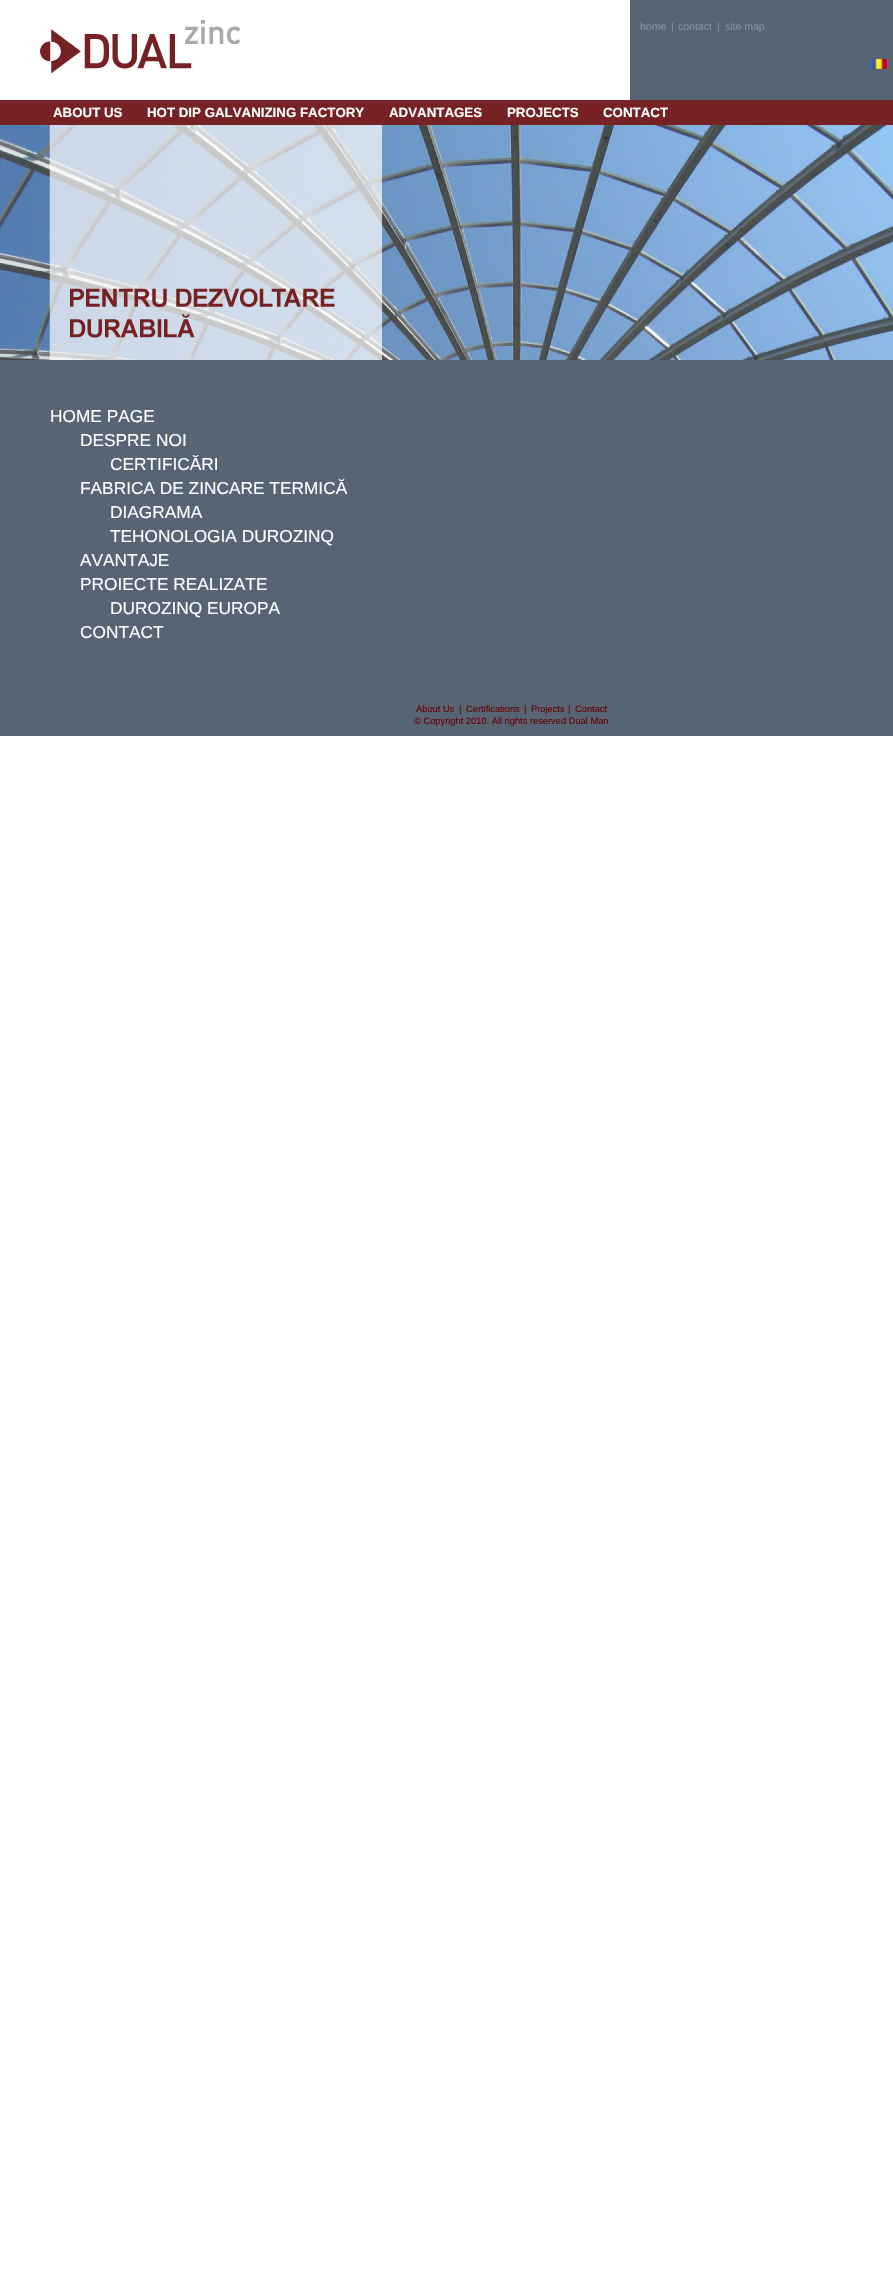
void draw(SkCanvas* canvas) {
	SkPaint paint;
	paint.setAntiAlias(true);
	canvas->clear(0xffffffff);
	paint.setColor(0xff566474);
	canvas->drawRect(SkRect::MakeXYWH(0, 0, 893, 736), paint);
	paint.setColor(0xffffffff);
	canvas->drawRect(SkRect::MakeXYWH(0, 0, 630, 100), paint);
	canvas->drawImageRect(SkImages::DeferredFromEncodedData(SkData::MakeFromFileName("img1.png")), SkRect::MakeXYWH(40, 20, 200, 53), SkSamplingOptions());
	SkFont f1(fontMgr->matchFamilyStyle("Liberation Sans", SkFontStyle::Normal()), 10.5);
	f1.setSubpixel(true);
	paint.setColor(0xff89919e);
	canvas->drawString("home", 640, 30, f1, paint);
	canvas->drawString("|", 671, 30, f1, paint);
	canvas->drawString("contact", 678, 30, f1, paint);
	canvas->drawString("|", 717, 30, f1, paint);
	canvas->drawString("site map", 725, 30, f1, paint);
	canvas->drawImageRect(SkImages::DeferredFromEncodedData(SkData::MakeFromFileName("img2.png")), SkRect::MakeXYWH(870, 59, 18, 10), SkSamplingOptions());
	paint.setColor(0xff762123);
	canvas->drawRect(SkRect::MakeXYWH(0, 100, 893, 25), paint);
	SkFont f2(fontMgr->matchFamilyStyle("Liberation Sans", SkFontStyle::Bold()), 13.3);
	f2.setSubpixel(true);
	paint.setColor(0xffffffff);
	canvas->drawString("ABOUT US", 53, 117, f2, paint);
	canvas->drawString("HOT DIP GALVANIZING FACTORY", 147, 117, f2, paint);
	canvas->drawString("ADVANTAGES", 389, 117, f2, paint);
	canvas->drawString("PROJECTS", 507, 117, f2, paint);
	canvas->drawString("CONTACT", 603, 117, f2, paint);
	canvas->drawImageRect(SkImages::DeferredFromEncodedData(SkData::MakeFromFileName("img3.png")), SkRect::MakeXYWH(0, 125, 893, 235), SkSamplingOptions());
	SkFont f3(fontMgr->matchFamilyStyle("Liberation Sans", SkFontStyle::Normal()), 17.3);
	f3.setSubpixel(true);
	canvas->drawString("HOME PAGE", 50, 422, f3, paint);
	canvas->drawString("DESPRE NOI", 80, 446, f3, paint);
	canvas->drawString("CERTIFICĂRI", 110, 470, f3, paint);
	canvas->drawString("FABRICA DE ZINCARE TERMICĂ", 80, 494, f3, paint);
	canvas->drawString("DIAGRAMA", 110, 518, f3, paint);
	canvas->drawString("TEHONOLOGIA DUROZINQ", 110, 542, f3, paint);
	canvas->drawString("AVANTAJE", 80, 566, f3, paint);
	canvas->drawString("PROIECTE REALIZATE", 80, 590, f3, paint);
	canvas->drawString("DUROZINQ EUROPA", 110, 614, f3, paint);
	canvas->drawString("CONTACT", 80, 638, f3, paint);
	SkFont f4(fontMgr->matchFamilyStyle("Liberation Sans", SkFontStyle::Normal()), 9.3);
	f4.setSubpixel(true);
	paint.setColor(0xff660000);
	canvas->drawString("About Us", 416, 712, f4, paint);
	canvas->drawString("|", 459, 712, f4, paint);
	canvas->drawString("Certifications", 466, 712, f4, paint);
	canvas->drawString("|", 524, 712, f4, paint);
	canvas->drawString("Projects", 531, 712, f4, paint);
	canvas->drawString("|", 568, 712, f4, paint);
	canvas->drawString("Contact", 575, 712, f4, paint);
	canvas->drawString("© Copyright 2010. All rights reserved Dual Man", 414, 724, f4, paint);
}
